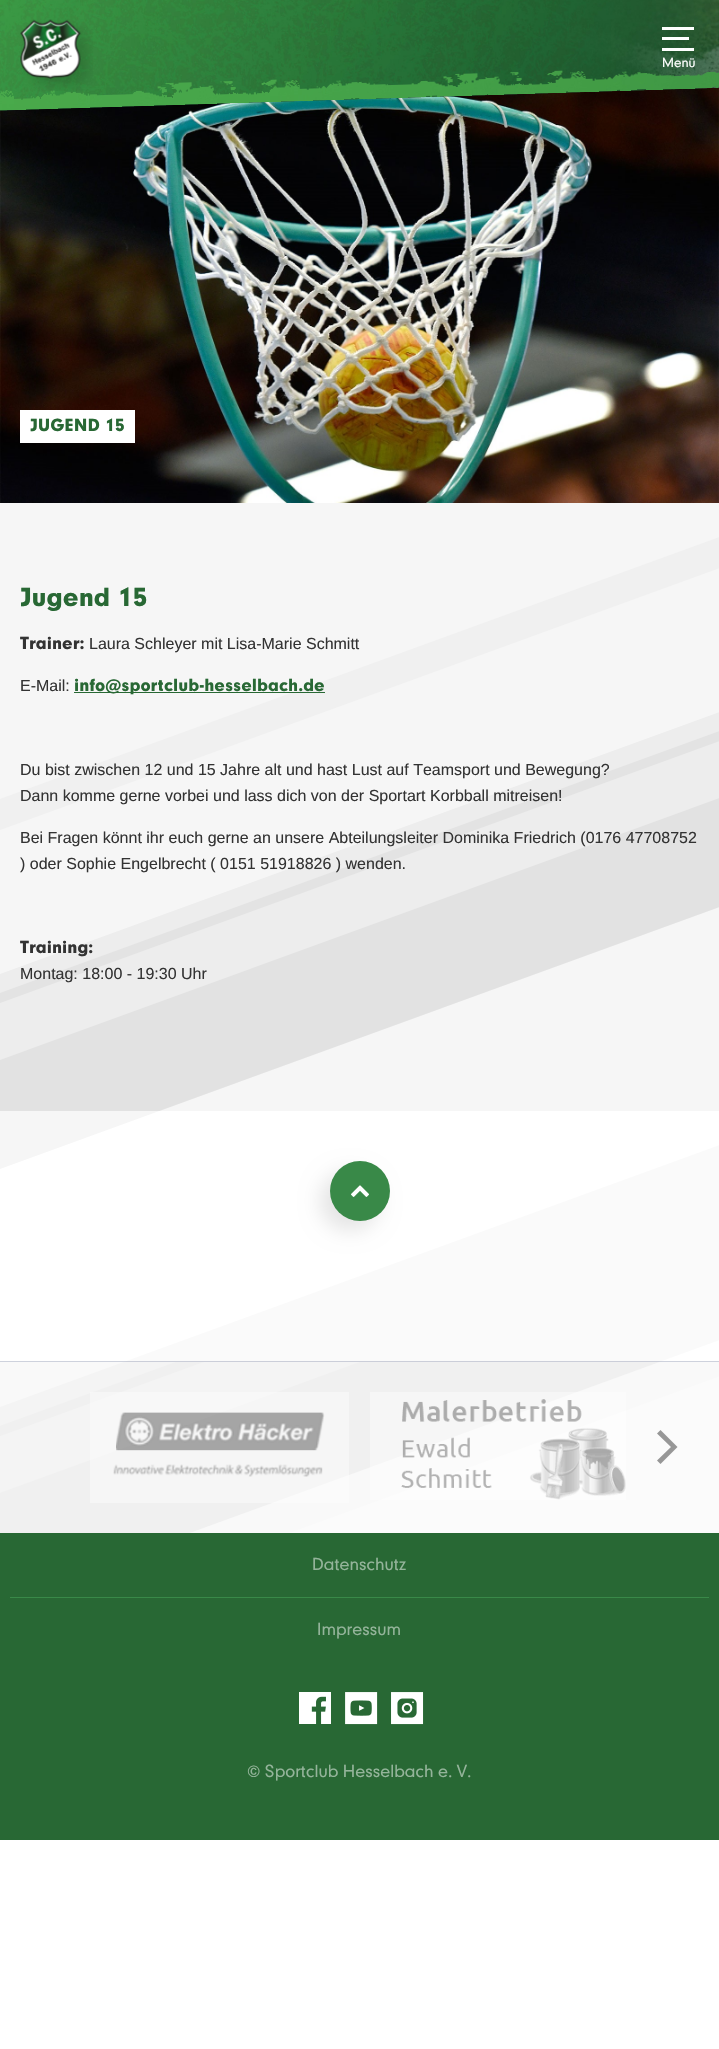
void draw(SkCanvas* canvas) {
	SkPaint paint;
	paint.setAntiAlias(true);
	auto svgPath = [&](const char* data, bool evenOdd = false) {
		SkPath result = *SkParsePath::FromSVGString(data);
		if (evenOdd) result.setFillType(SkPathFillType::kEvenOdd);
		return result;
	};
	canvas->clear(0xffffffff);
	canvas->drawImageRect(SkImages::DeferredFromEncodedData(SkData::MakeFromFileName("img4.png")), SkRect::MakeXYWH(0, 87, 719, 416), SkSamplingOptions());
	paint.setColor(0xff286834);
	canvas->drawPath(svgPath("M-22-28L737-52L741 87L-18 111Z"), paint);
	canvas->drawImageRect(SkImages::DeferredFromEncodedData(SkData::MakeFromFileName("img1.png")), SkRect::MakeXYWH(0, 0, 719, 111), SkSamplingOptions());
	paint.setColor(0xffffffff);
	canvas->drawRect(SkRect::MakeXYWH(662, 37, 27, 3), paint);
	canvas->drawRect(SkRect::MakeXYWH(662, 27, 32, 3), paint);
	canvas->drawRect(SkRect::MakeXYWH(662, 48, 32, 3), paint);
	SkFont f1(fontMgr->matchFamilyStyle("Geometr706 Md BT", SkFontStyle(500, SkFontStyle::kNormal_Width, SkFontStyle::kUpright_Slant)), 12);
	f1.setSubpixel(true);
	canvas->drawString("Menü", 662, 67, f1, paint);
	canvas->drawImageRect(SkImages::DeferredFromEncodedData(SkData::MakeFromFileName("img2.png")), SkRect::MakeXYWH(20, 19, 73, 72), SkSamplingOptions());
	canvas->drawImageRect(SkImages::DeferredFromEncodedData(SkData::MakeFromFileName("img3.png")), SkRect::MakeXYWH(0, 70, 719, 40), SkSamplingOptions());
	canvas->drawRect(SkRect::MakeXYWH(20, 410, 115, 33), paint);
	SkFont f2(fontMgr->matchFamilyStyle("Geometr706 Md BT", SkFontStyle(900, SkFontStyle::kNormal_Width, SkFontStyle::kUpright_Slant)), 16);
	f2.setSubpixel(true);
	paint.setColor(0xff286834);
	canvas->drawString("JUGEND 15", 30, 431, f2, paint);
	paint.setColor(0xfff6f6f6);
	canvas->drawRect(SkRect::MakeXYWH(0, 503, 719, 608), paint);
	canvas->save();
	canvas->clipRect(SkRect::MakeXYWH(0, 503, 719, 608));
	paint.setColor(0xffebebeb);
	canvas->drawPath(svgPath("M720 907L0 1169V1060L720 798Z"), paint);
	canvas->restore();
	paint.setColor(0x0a1a1a1a);
	canvas->drawPath(svgPath("M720 907L0 1169V974L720 712Z"), paint);
	paint.setColor(0xffe3e3e3);
	canvas->drawPath(svgPath("M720 741L0 1003V993L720 731Z"), paint);
	paint.setColor(0xfff0f0f0);
	canvas->drawPath(svgPath("M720 568L0 830V799L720 537Z"), paint);
	SkFont f3(fontMgr->matchFamilyStyle("Geometr706 Md BT", SkFontStyle(900, SkFontStyle::kNormal_Width, SkFontStyle::kUpright_Slant)), 24);
	f3.setSubpixel(true);
	paint.setColor(0xff286834);
	canvas->drawString("Jugend 15", 20, 606, f3, paint);
	paint.setColor(0xff333333);
	canvas->drawString("Trainer:", 20, 649, f2, paint);
	SkFont f4(fontMgr->matchFamilyStyle("Liberation Sans", SkFontStyle::Normal()), 16);
	f4.setSubpixel(true);
	canvas->drawString("Laura Schleyer mit Lisa-Marie Schmitt", 89, 649, f4, paint);
	canvas->drawString("E-Mail:", 20, 691, f4, paint);
	paint.setColor(0xff286834);
	canvas->drawRect(SkRect::MakeXYWH(74, 692, 251, 1), paint);
	canvas->drawString("info@sportclub-hesselbach.de", 74, 691, f2, paint);
	paint.setColor(0xff333333);
	canvas->drawString("Du bist zwischen 12 und 15 Jahre alt und hast Lust auf Teamsport und Bewegung?", 20, 775, f4, paint);
	canvas->drawString("Dann komme gerne vorbei und lass dich von der Sportart Korbball mitreisen!", 20, 801, f4, paint);
	canvas->drawString("Bei Fragen könnt ihr euch gerne an unsere Abteilungsleiter Dominika Friedrich (0176 47708752", 20, 843, f4, paint);
	canvas->drawString(") oder Sophie Engelbrecht ( 0151 51918826 ) wenden.", 20, 869, f4, paint);
	canvas->drawString("Training:", 20, 953, f2, paint);
	canvas->drawString("Montag: 18:00 - 19:30 Uhr", 20, 979, f4, paint);
	paint.setColor(0x1a000000);
	paint.setMaskFilter(SkMaskFilter::MakeBlur(kNormal_SkBlurStyle, 10));
	canvas->drawRoundRect(SkRect::MakeXYWH(320, 1171, 60, 60), 30, 30, paint);
	paint.setMaskFilter(nullptr);
	paint.setColor(0xff398948);
	canvas->drawCircle(360, 1191, 30, paint);
	canvas->drawImageRect(SkImages::DeferredFromEncodedData(SkData::MakeFromFileName("img5.png")), SkRect::MakeXYWH(351, 1185, 18, 12), SkSamplingOptions());
	paint.setColor(0xffced2dd);
	canvas->drawRect(SkRect::MakeXYWH(0, 1361, 719, 1), paint);
	paint.setColor(0xfffbfbfb);
	canvas->drawRect(SkRect::MakeXYWH(288, 1376, 431, 157), paint);
	canvas->save();
	canvas->clipRect(SkRect::MakeXYWH(0, 1362, 719, 171));
	paint.setColor(0xfff9f9f9);
	canvas->drawPath(svgPath("M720 1376L0 1638V1203L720 941Z"), paint);
	paint.setColor(0xfff5f5f5);
	canvas->drawPath(svgPath("M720 1340L0 1602V1493L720 1231Z"), paint);
	canvas->restore();
	paint.setColor(0x0a8c8c8c);
	canvas->drawPath(svgPath("M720 1340L0 1602V1407L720 1145Z"), paint);
	canvas->save();
	canvas->clipRect(SkRect::MakeXYWH(0, 1362, 719, 171));
	paint.setColor(0xfff0f0f0);
	canvas->drawPath(svgPath("M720 1174L0 1436V1426L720 1164Z"), paint);
	canvas->restore();
	canvas->drawImageRect(SkImages::DeferredFromEncodedData(SkData::MakeFromFileName("img6.png")), SkRect::MakeXYWH(90, 1392, 259, 111), SkSamplingOptions());
	canvas->drawImageRect(SkImages::DeferredFromEncodedData(SkData::MakeFromFileName("img7.png")), SkRect::MakeXYWH(370, 1392, 256, 108), SkSamplingOptions());
	paint.setColor(0xff979797);
	canvas->drawPath(svgPath("M677.5 1447L660.5 1430L657 1433.5L671 1447L657 1460.5L660.5 1464Z"), paint);
	paint.setColor(0xff286834);
	canvas->drawRect(SkRect::MakeXYWH(0, 1533, 719, 307), paint);
	SkFont f5(fontMgr->matchFamilyStyle("Geometr706 Md BT", SkFontStyle(500, SkFontStyle::kNormal_Width, SkFontStyle::kUpright_Slant)), 16);
	f5.setSubpixel(true);
	paint.setColor(0xff94b49a);
	canvas->drawString("Datenschutz", 312, 1570, f5, paint);
	paint.setColor(0xff398948);
	canvas->drawRect(SkRect::MakeXYWH(10, 1597, 699, 1), paint);
	paint.setColor(0xff94b49a);
	canvas->drawString("Impressum", 317, 1635, f5, paint);
	canvas->drawImageRect(SkImages::DeferredFromEncodedData(SkData::MakeFromFileName("img8.png")), SkRect::MakeXYWH(299, 1692, 32, 32), SkSamplingOptions());
	canvas->drawImageRect(SkImages::DeferredFromEncodedData(SkData::MakeFromFileName("img9.png")), SkRect::MakeXYWH(345, 1692, 33, 33), SkSamplingOptions());
	canvas->drawImageRect(SkImages::DeferredFromEncodedData(SkData::MakeFromFileName("img10.png")), SkRect::MakeXYWH(391, 1692, 33, 33), SkSamplingOptions());
	canvas->drawString("© Sportclub Hesselbach e. V.", 247, 1777, f5, paint);
}
